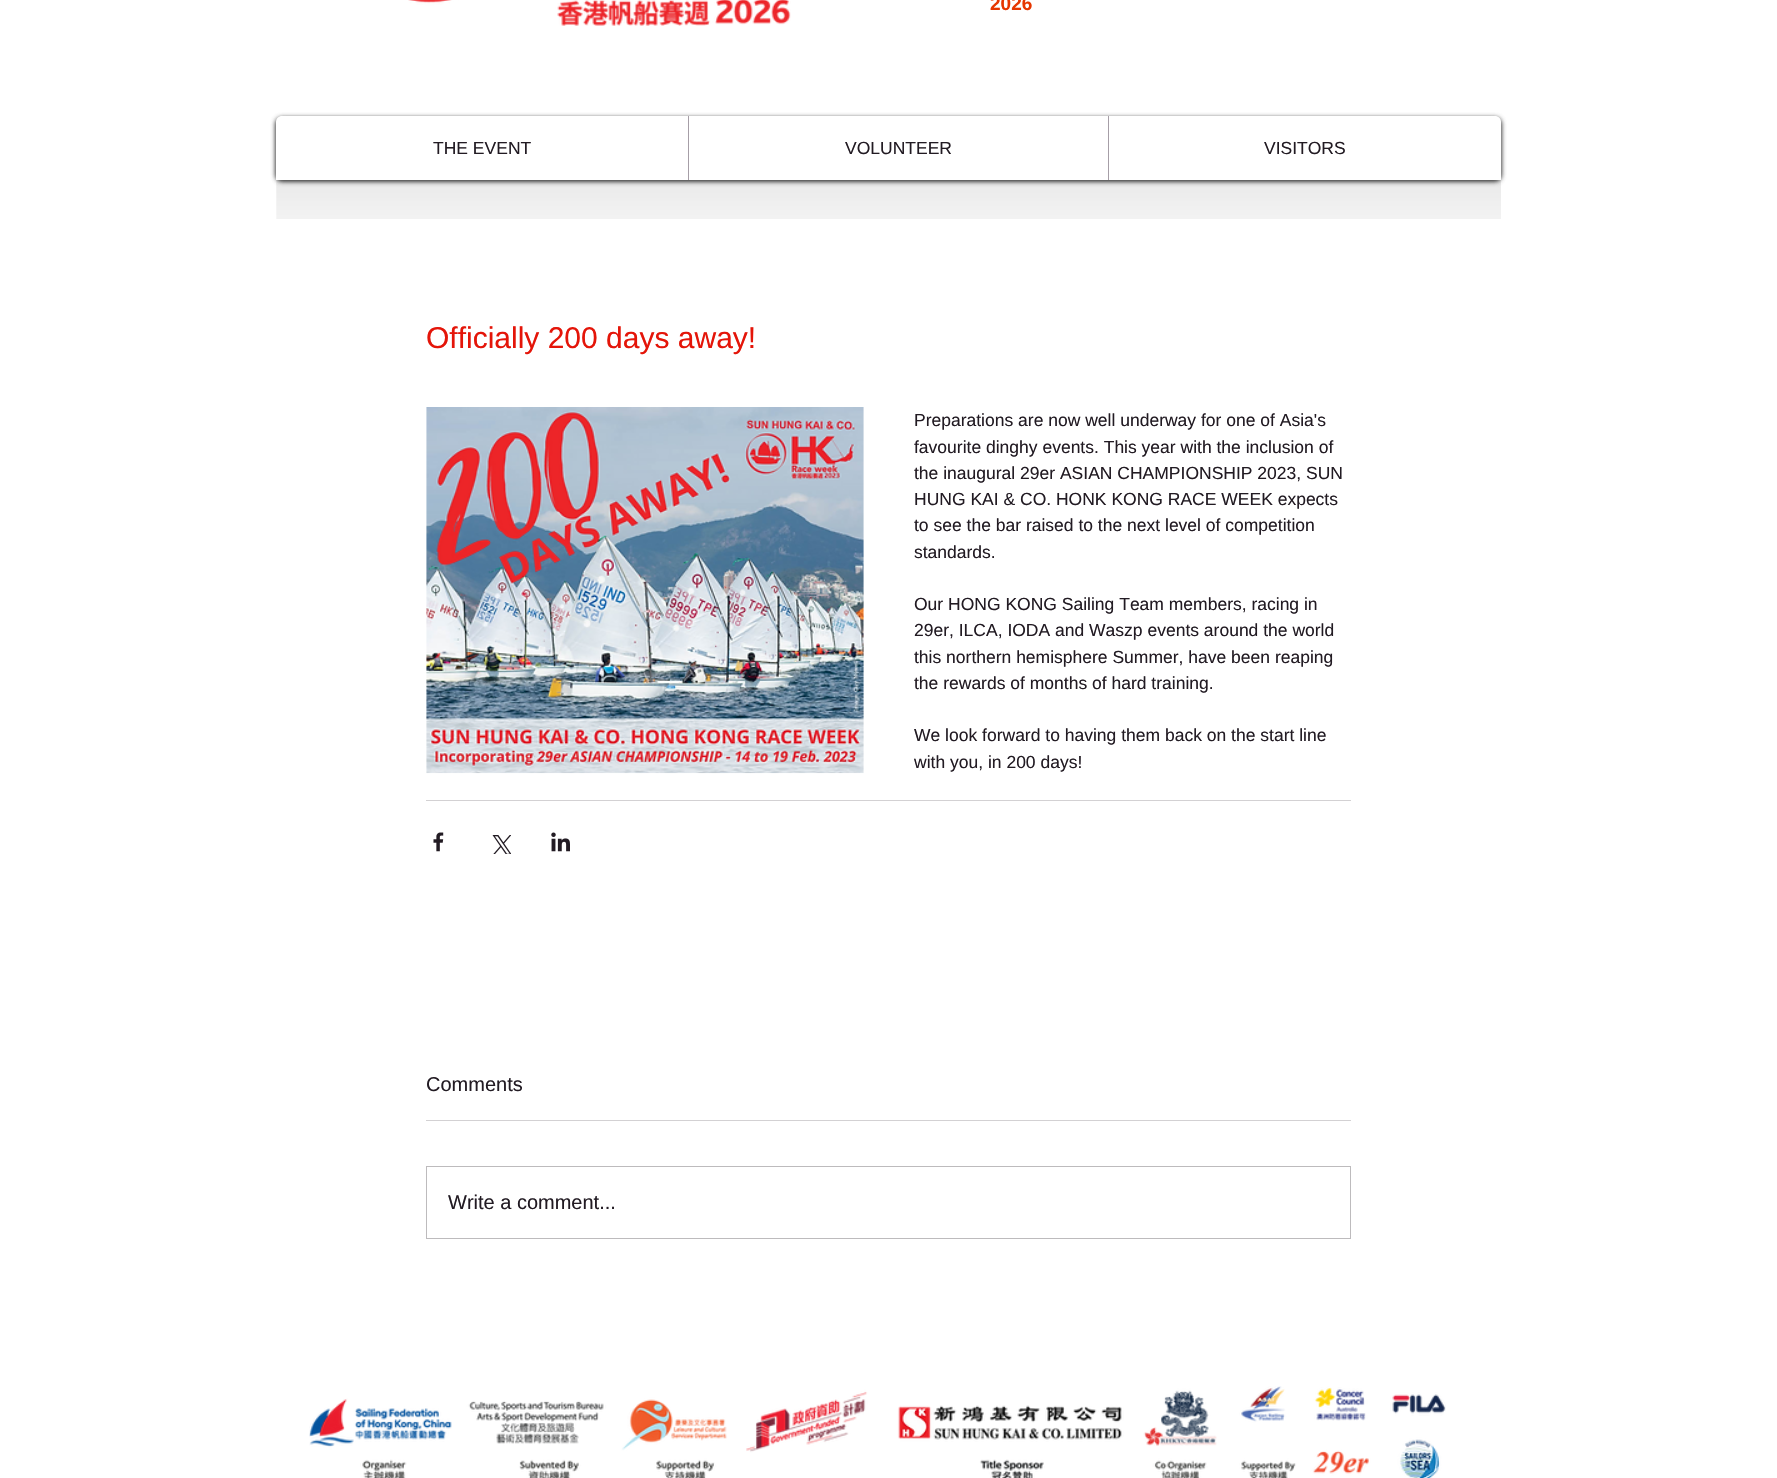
void draw(SkCanvas* canvas) {
	SkPaint paint;
	paint.setAntiAlias(true);
	auto svgPath = [&](const char* data, bool evenOdd = false) {
		SkPath result = *SkParsePath::FromSVGString(data);
		if (evenOdd) result.setFillType(SkPathFillType::kEvenOdd);
		return result;
	};
	canvas->clear(0xffffffff);
	canvas->drawImageRect(SkImages::DeferredFromEncodedData(SkData::MakeFromFileName("img1.png")), SkRect::MakeXYWH(408, 0, 383, 26), SkSamplingOptions());
	SkFont f1(fontMgr->matchFamilyStyle("Liberation Sans", SkFontStyle::Bold()), 19);
	f1.setSubpixel(true);
	paint.setColor(0xffe63600);
	canvas->drawString("2026", 990, 10, f1, paint);
	canvas->drawImageRect(SkImages::DeferredFromEncodedData(SkData::MakeFromFileName("img2.png")), SkRect::MakeXYWH(276, 180, 1225, 39), SkSamplingOptions());
	paint.setColor(0x99000000);
	paint.setMaskFilter(SkMaskFilter::MakeBlur(kNormal_SkBlurStyle, 2.5));
	canvas->drawRoundRect(SkRect::MakeXYWH(276, 118, 1225, 63), 6, 6, paint);
	paint.setMaskFilter(nullptr);
	paint.setMaskFilter(SkMaskFilter::MakeBlur(kNormal_SkBlurStyle, 2.5));
	canvas->drawRoundRect(SkRect::MakeXYWH(276, 118, 1225, 63), 6, 6, paint);
	paint.setMaskFilter(nullptr);
	paint.setColor(0xffffffff);
	canvas->drawPath(svgPath("M282 116H1495C1498.5 116 1501 118.5 1501 122V180H276V122C276 118.5 278.5 116 282 116Z"), paint);
	SkFont f2(fontMgr->matchFamilyStyle("Liberation Sans", SkFontStyle::Normal()), 17.5);
	f2.setSubpixel(true);
	paint.setColor(0xff221b23);
	canvas->drawString("THE EVENT", 433, 154, f2, paint);
	paint.setColor(0xffa69ea7);
	canvas->drawRect(SkRect::MakeXYWH(688, 116, 1, 64), paint);
	paint.setColor(0xff221b23);
	canvas->drawString("VOLUNTEER", 845, 154, f2, paint);
	paint.setColor(0xffa69ea7);
	canvas->drawRect(SkRect::MakeXYWH(1108, 116, 1, 64), paint);
	paint.setColor(0xff221b23);
	canvas->drawString("VISITORS", 1264, 154, f2, paint);
	SkFont f3(fontMgr->matchFamilyStyle("Liberation Sans", SkFontStyle::Normal()), 30);
	f3.setSubpixel(true);
	paint.setColor(0xffe41509);
	canvas->drawString("Officially 200 days away!", 426, 348, f3, paint);
	canvas->drawImageRect(SkImages::DeferredFromEncodedData(SkData::MakeFromFileName("img3.png")), SkRect::MakeXYWH(426, 407, 438, 367), SkSamplingOptions());
	paint.setColor(0xff221b23);
	canvas->drawString("Preparations are now well underway for one of Asia's", 914, 426, f2, paint);
	canvas->drawString("favourite dinghy events. This year with the inclusion of", 914, 453, f2, paint);
	canvas->drawString("the inaugural 29er ASIAN CHAMPIONSHIP 2023, SUN", 914, 479, f2, paint);
	canvas->drawString("HUNG KAI & CO. HONK KONG RACE WEEK expects", 914, 505, f2, paint);
	canvas->drawString("to see the bar raised to the next level of competition", 914, 531, f2, paint);
	canvas->drawString("standards.", 914, 558, f2, paint);
	canvas->drawString("Our HONG KONG Sailing Team members, racing in", 914, 610, f2, paint);
	canvas->drawString("29er, ILCA, IODA and Waszp events around the world", 914, 636, f2, paint);
	canvas->drawString("this northern hemisphere Summer, have been reaping", 914, 663, f2, paint);
	canvas->drawString("the rewards of months of hard training.", 914, 689, f2, paint);
	canvas->drawString("We look forward to having them back on the start line", 914, 741, f2, paint);
	canvas->drawString("with you, in 200 days!", 914, 768, f2, paint);
	paint.setColor(0xffd3d1d3);
	canvas->drawRect(SkRect::MakeXYWH(426, 800, 925, 1), paint);
	canvas->drawImageRect(SkImages::DeferredFromEncodedData(SkData::MakeFromFileName("img4.png")), SkRect::MakeXYWH(433, 832, 11, 20), SkSamplingOptions());
	canvas->drawImageRect(SkImages::DeferredFromEncodedData(SkData::MakeFromFileName("img5.png")), SkRect::MakeXYWH(492, 835, 19, 19), SkSamplingOptions());
	canvas->drawImageRect(SkImages::DeferredFromEncodedData(SkData::MakeFromFileName("img6.png")), SkRect::MakeXYWH(551, 832, 19, 20), SkSamplingOptions());
	SkFont f4(fontMgr->matchFamilyStyle("Liberation Sans", SkFontStyle::Normal()), 20);
	f4.setSubpixel(true);
	paint.setColor(0xff221b23);
	canvas->drawString("Comments", 426, 1091, f4, paint);
	paint.setColor(0xffd3d1d3);
	canvas->drawRect(SkRect::MakeXYWH(426, 1120, 925, 1), paint);
	paint.setStroke(true);
	paint.setStrokeWidth(1);
	paint.setColor(0xffbdbbbd);
	canvas->drawRect(SkRect::MakeXYWH(426.5, 1166.5, 924, 72), paint);
	paint.setStroke(false);
	paint.setColor(0xff221b23);
	canvas->drawString("Write a comment...", 448, 1209, f4, paint);
	canvas->drawImageRect(SkImages::DeferredFromEncodedData(SkData::MakeFromFileName("img7.png")), SkRect::MakeXYWH(309, 1386, 1137, 92), SkSamplingOptions());
}
